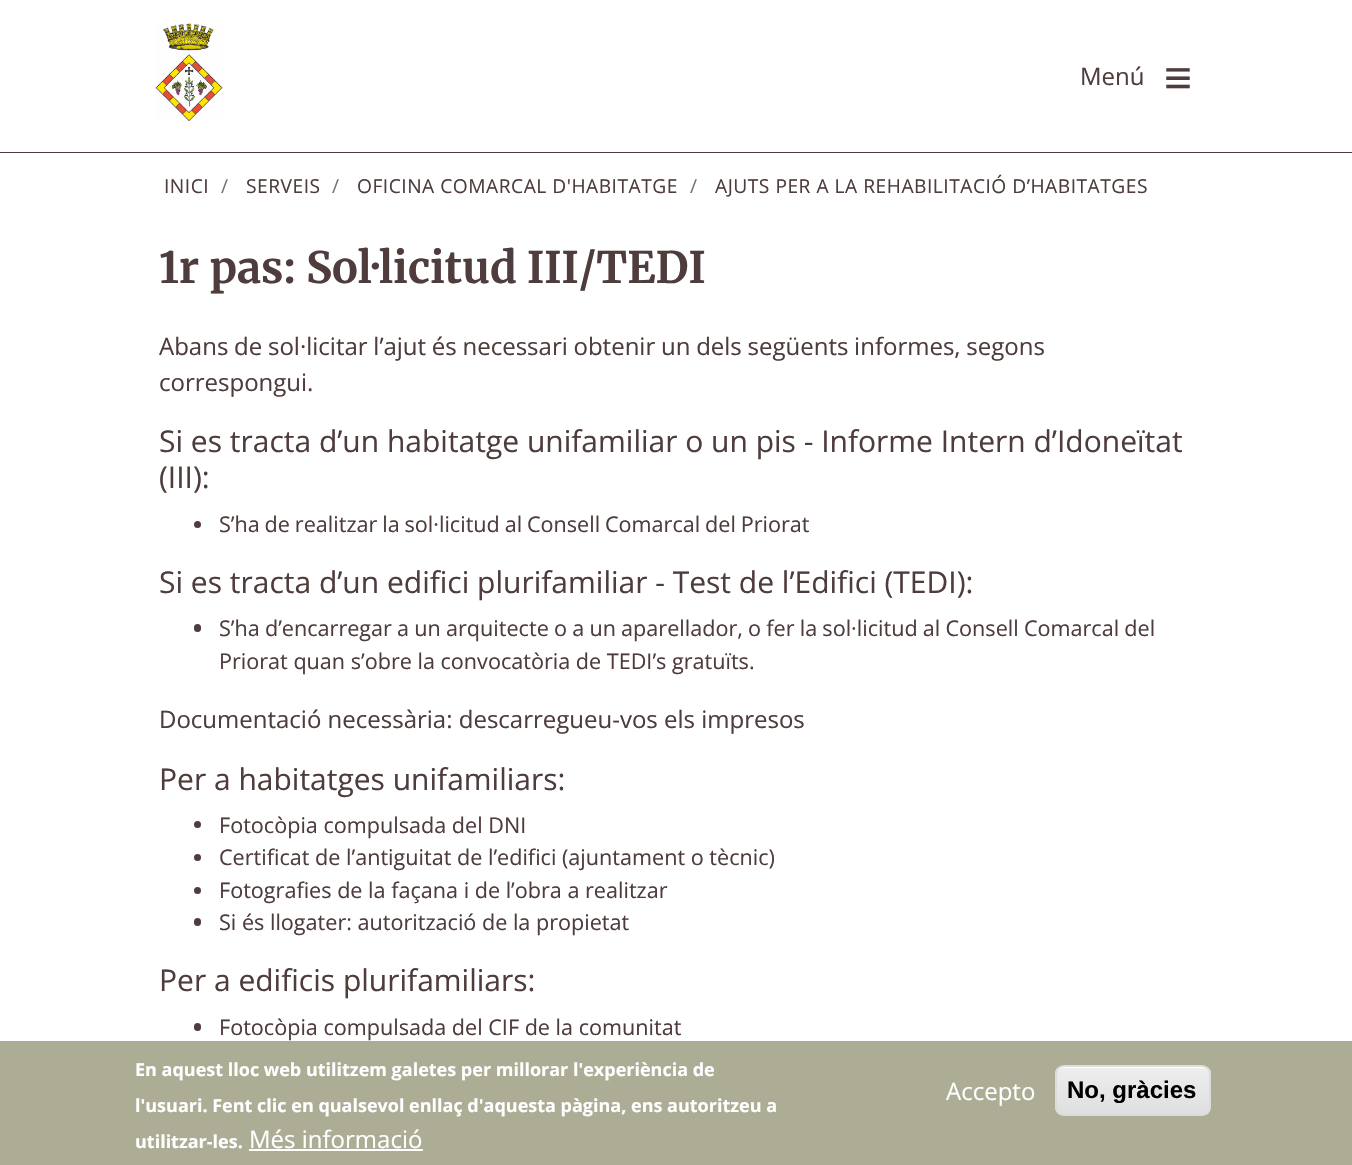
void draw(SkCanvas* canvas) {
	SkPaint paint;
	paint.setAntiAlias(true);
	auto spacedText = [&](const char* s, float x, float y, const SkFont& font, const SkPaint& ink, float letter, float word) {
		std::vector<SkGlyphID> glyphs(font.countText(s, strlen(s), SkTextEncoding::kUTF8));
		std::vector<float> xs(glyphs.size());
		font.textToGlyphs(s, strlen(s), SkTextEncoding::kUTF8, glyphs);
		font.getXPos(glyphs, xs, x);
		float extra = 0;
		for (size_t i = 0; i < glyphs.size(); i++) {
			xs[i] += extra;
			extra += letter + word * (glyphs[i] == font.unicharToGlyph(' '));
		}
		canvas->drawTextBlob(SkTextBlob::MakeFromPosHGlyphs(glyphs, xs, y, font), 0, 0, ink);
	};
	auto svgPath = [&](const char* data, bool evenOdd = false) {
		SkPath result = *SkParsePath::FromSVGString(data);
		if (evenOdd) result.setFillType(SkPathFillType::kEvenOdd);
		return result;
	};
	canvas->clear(0xffffffff);
	paint.setColor(0xff4f3d3d);
	canvas->drawRect(SkRect::MakeXYWH(0, 152, 1352, 1), paint);
	canvas->drawImageRect(SkImages::DeferredFromEncodedData(SkData::MakeFromFileName("img1.png")), SkRect::MakeXYWH(155, 23, 68, 98), SkSamplingOptions());
	SkFont f1(fontMgr->matchFamilyStyle("Open Sans", SkFontStyle::Normal()), 24);
	f1.setSubpixel(true);
	canvas->drawString("Menú", 1080, 85, f1, paint);
	SkFont f2(fontMgr->matchFamilyStyle("Liberation Sans", SkFontStyle::Normal()), 48);
	f2.setSubpixel(true);
	canvas->drawString("≡", 1164, 94, f2, paint);
	SkFont f3(fontMgr->matchFamilyStyle("Open Sans", SkFontStyle::Normal()), 19.2);
	f3.setSubpixel(true);
	spacedText("INICI", 164, 193, f3, paint, 0.5, 0);
	paint.setColor(0xff6c757d);
	spacedText("/", 221, 193, f3, paint, 0.5, 0);
	paint.setColor(0xff4f3d3d);
	spacedText("SERVEIS", 246, 193, f3, paint, 0.5, 0);
	paint.setColor(0xff6c757d);
	spacedText("/", 332, 193, f3, paint, 0.5, 0);
	paint.setColor(0xff4f3d3d);
	spacedText("OFICINA COMARCAL D'HABITATGE", 357, 193, f3, paint, 0.5, 0);
	paint.setColor(0xff6c757d);
	spacedText("/", 690, 193, f3, paint, 0.5, 0);
	paint.setColor(0xff4f3d3d);
	spacedText("AJUTS PER A LA REHABILITACIÓ D’HABITATGES", 715, 193, f3, paint, 0.5, 0);
	SkFont f4(fontMgr->matchFamilyStyle("Merriweather", SkFontStyle::Bold()), 43.25);
	f4.setSubpixel(true);
	canvas->drawString("1r pas: Sol·licitud III/TEDI", 159, 283, f4, paint);
	spacedText("Abans de sol·licitar l’ajut és necessari obtenir un dels següents informes, segons", 159, 355, f1, paint, 0, -0.5);
	canvas->drawString("correspongui.", 159, 391, f1, paint);
	SkFont f5(fontMgr->matchFamilyStyle("Open Sans", SkFontStyle::Normal()), 30);
	f5.setSubpixel(true);
	canvas->drawString("Si es tracta d’un habitatge unifamiliar o un pis - Informe Intern d’Idoneïtat", 159, 452, f5, paint);
	canvas->drawString("(III):", 159, 488, f5, paint);
	canvas->drawCircle(197.5, 524.5, 3.5, paint);
	SkFont f6(fontMgr->matchFamilyStyle("Open Sans", SkFontStyle::Normal()), 21.6);
	f6.setSubpixel(true);
	spacedText("S’ha de realitzar la sol·licitud al Consell Comarcal del Priorat", 219, 532, f6, paint, 0, -0.75);
	canvas->drawString("Si es tracta d’un edifici plurifamiliar - Test de l’Edifici (TEDI):", 159, 593, f5, paint);
	canvas->drawRoundRect(SkRect::MakeXYWH(194, 624, 7, 8), 3.5, 3.5, paint);
	spacedText("S’ha d’encarregar a un arquitecte o a un aparellador, o fer la sol·licitud al Consell Comarcal del", 219, 636, f6, paint, 0, -0.4);
	canvas->drawString("Priorat quan s’obre la convocatòria de TEDI’s gratuïts.", 219, 669, f6, paint);
	canvas->drawString("Documentació necessària: descarregueu-vos els impresos", 159, 728, f1, paint);
	canvas->drawString("Per a habitatges unifamiliars:", 159, 790, f5, paint);
	canvas->drawCircle(197.5, 824.5, 3.5, paint);
	canvas->drawString("Fotocòpia compulsada del DNI", 219, 833, f6, paint);
	canvas->drawCircle(197.5, 857.5, 3.5, paint);
	canvas->drawString("Certificat de l’antiguitat de l’edifici (ajuntament o tècnic)", 219, 865, f6, paint);
	canvas->drawCircle(197.5, 890.5, 3.5, paint);
	canvas->drawString("Fotografies de la façana i de l’obra a realitzar", 219, 898, f6, paint);
	canvas->drawRoundRect(SkRect::MakeXYWH(194, 918, 7, 8), 3.5, 3.5, paint);
	canvas->drawString("Si és llogater: autorització de la propietat", 219, 930, f6, paint);
	canvas->drawString("Per a edificis plurifamiliars:", 159, 991, f5, paint);
	canvas->drawRoundRect(SkRect::MakeXYWH(194, 1023, 7, 8), 3.5, 3.5, paint);
	canvas->drawString("Fotocòpia compulsada del CIF de la comunitat", 219, 1035, f6, paint);
	paint.setColor(0xffadac95);
	canvas->drawRect(SkRect::MakeXYWH(0, 1041, 1352, 124), paint);
	SkFont f7(fontMgr->matchFamilyStyle("Open Sans", SkFontStyle::Bold()), 18);
	f7.setSubpixel(true);
	paint.setColor(0xffffffff);
	canvas->drawString("En aquest lloc web utilitzem galetes per millorar l'experiència de", 135, 1076, f7, paint);
	canvas->drawString("l'usuari. Fent clic en qualsevol enllaç d'aquesta pàgina, ens autoritzeu a", 135, 1112, f7, paint);
	canvas->drawString("utilitzar-les.", 135, 1148, f7, paint);
	canvas->drawString("Més informació", 249, 1148, f1, paint);
	canvas->drawRect(SkRect::MakeXYWH(249, 1149, 174, 2), paint);
	canvas->drawString("Accepto", 946, 1100, f1, paint);
	canvas->save();
	canvas->clipPath(svgPath("M1064 1065H1202C1207 1065 1211 1069 1211 1074V1107C1211 1112 1207 1116 1202 1116H1064C1059 1116 1055 1112 1055 1107V1074C1055 1069 1059 1065 1064 1065Z"), true);
	{
		const SkColor colors[] = {0xffededed, 0xffdfdfdf};
		const float stops[] = {0.05, 1};
		const SkPoint ends[] = {{1133, 1067}, {1133, 1115}};
		paint.setShader(SkGradientShader::MakeLinear(ends, colors, stops, 2, SkTileMode::kClamp));
		paint.setAlpha(255);
	}
	canvas->drawRect(SkRect::MakeXYWH(1055, 1067, 156, 48), paint);
	canvas->restore();
	paint.setShader(nullptr);
	paint.setColor(0xffffffff);
	canvas->drawPath(svgPath("M1064 1068H1202C1206 1068 1209 1071 1209 1076C1209 1061 1185 1067 1178 1067H1087C1080 1067 1056 1061 1056 1076C1056 1071 1059 1068 1064 1068Z"), paint);
	paint.setStroke(true);
	paint.setStrokeWidth(2);
	paint.setColor(0xffdcdcdc);
	canvas->drawRoundRect(SkRect::MakeXYWH(1056, 1066, 154, 49), 8, 8, paint);
	SkFont f8(fontMgr->matchFamilyStyle("Liberation Sans", SkFontStyle::Bold()), 24);
	f8.setSubpixel(true);
	paint.setStroke(false);
	paint.setColor(0xff000000);
	canvas->drawString("No, gràcies", 1067, 1098, f8, paint);
}
